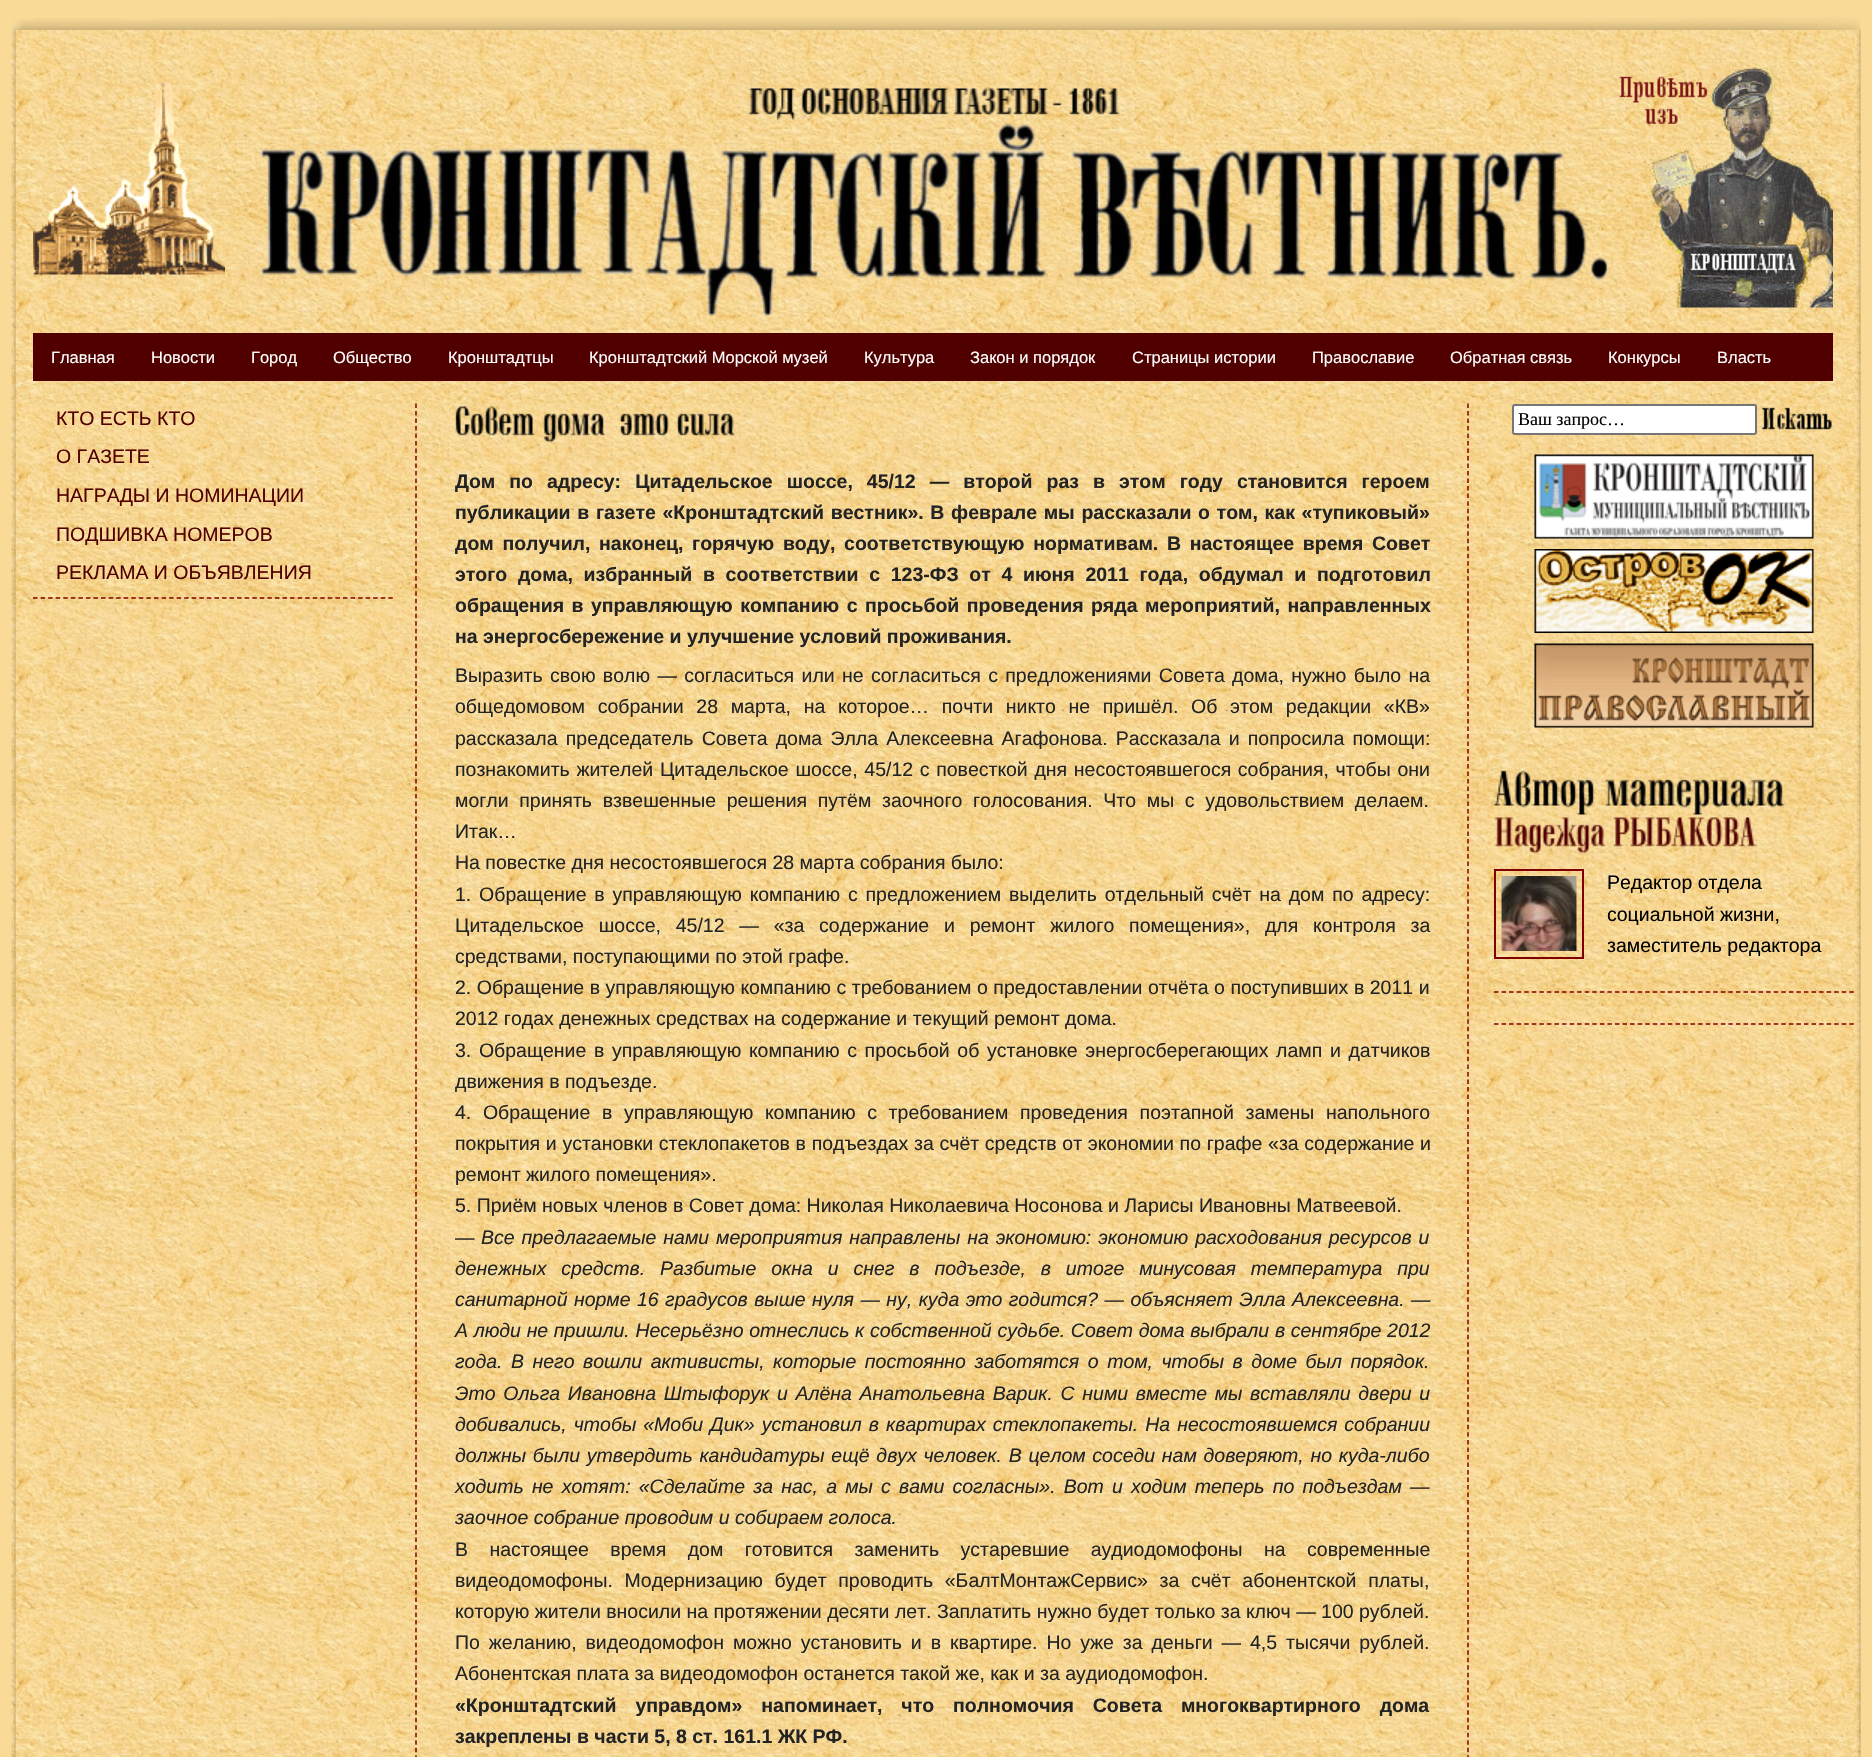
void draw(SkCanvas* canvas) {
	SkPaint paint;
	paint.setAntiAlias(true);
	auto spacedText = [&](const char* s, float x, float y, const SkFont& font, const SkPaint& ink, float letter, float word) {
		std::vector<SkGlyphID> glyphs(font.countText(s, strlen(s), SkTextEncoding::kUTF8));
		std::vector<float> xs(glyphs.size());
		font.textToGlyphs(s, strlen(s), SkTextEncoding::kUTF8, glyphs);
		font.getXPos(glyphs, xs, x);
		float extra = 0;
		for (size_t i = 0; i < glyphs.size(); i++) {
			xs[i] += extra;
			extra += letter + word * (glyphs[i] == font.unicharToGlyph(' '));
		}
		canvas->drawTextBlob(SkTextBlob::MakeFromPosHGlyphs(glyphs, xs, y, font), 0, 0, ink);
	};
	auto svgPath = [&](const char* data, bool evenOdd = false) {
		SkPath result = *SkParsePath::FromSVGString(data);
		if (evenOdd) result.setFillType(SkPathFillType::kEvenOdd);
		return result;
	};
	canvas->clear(0xfff9da97);
	canvas->drawImageRect(SkImages::DeferredFromEncodedData(SkData::MakeFromFileName("img1.png")), SkRect::MakeXYWH(12, 17, 1848, 13), SkSamplingOptions());
	canvas->drawImageRect(SkImages::DeferredFromEncodedData(SkData::MakeFromFileName("img2.png")), SkRect::MakeXYWH(11, 30, 1850, 374), SkSamplingOptions());
	canvas->drawImageRect(SkImages::DeferredFromEncodedData(SkData::MakeFromFileName("img3.png")), SkRect::MakeXYWH(33, 82, 192, 193), SkSamplingOptions());
	canvas->drawImageRect(SkImages::DeferredFromEncodedData(SkData::MakeFromFileName("img4.png")), SkRect::MakeXYWH(260, 87, 1348, 229), SkSamplingOptions());
	canvas->drawImageRect(SkImages::DeferredFromEncodedData(SkData::MakeFromFileName("img5.png")), SkRect::MakeXYWH(1618, 67, 215, 241), SkSamplingOptions());
	paint.setColor(0xff510000);
	canvas->drawRect(SkRect::MakeXYWH(33, 333, 1800, 48), paint);
	SkFont f1(fontMgr->matchFamilyStyle("Liberation Sans", SkFontStyle::Normal()), 16.5);
	f1.setSubpixel(true);
	paint.setColor(0xffffffff);
	canvas->drawString("Главная", 51, 363, f1, paint);
	canvas->drawString("Новости", 151, 363, f1, paint);
	canvas->drawString("Город", 251, 363, f1, paint);
	canvas->drawString("Общество", 333, 363, f1, paint);
	canvas->drawString("Кронштадтцы", 448, 363, f1, paint);
	canvas->drawString("Кронштадтский Морской музей", 589, 363, f1, paint);
	canvas->drawString("Культура", 864, 363, f1, paint);
	canvas->drawString("Закон и порядок", 970, 363, f1, paint);
	canvas->drawString("Страницы истории", 1132, 363, f1, paint);
	canvas->drawString("Православие", 1312, 363, f1, paint);
	canvas->drawString("Обратная связь", 1450, 363, f1, paint);
	canvas->drawString("Конкурсы", 1608, 363, f1, paint);
	canvas->drawString("Власть", 1717, 363, f1, paint);
	canvas->drawImageRect(SkImages::DeferredFromEncodedData(SkData::MakeFromFileName("img6.png")), SkRect::MakeXYWH(11, 403, 1850, 1354), SkSamplingOptions());
	SkFont f2(fontMgr->matchFamilyStyle("Liberation Sans", SkFontStyle::Normal()), 19.5);
	f2.setSubpixel(true);
	paint.setColor(0xff510000);
	canvas->drawString("КТО ЕСТЬ КТО", 56, 425, f2, paint);
	canvas->drawString("О ГАЗЕТЕ", 56, 463, f2, paint);
	canvas->drawString("НАГРАДЫ И НОМИНАЦИИ", 56, 502, f2, paint);
	canvas->drawString("ПОДШИВКА НОМЕРОВ", 56, 541, f2, paint);
	canvas->drawString("РЕКЛАМА И ОБЪЯВЛЕНИЯ", 56, 579, f2, paint);
	paint.setStroke(true);
	paint.setStrokeWidth(1.5);
	paint.setColor(0xff800000);
	paint.setPathEffect(SkDashPathEffect::Make({{4.5f, 3.06f}}, 0));
	canvas->drawPath(svgPath("M33 598H393"), paint);
	paint.setPathEffect(nullptr);
	paint.setPathEffect(SkDashPathEffect::Make({{4.5f, 3.01f}}, 0));
	canvas->drawPath(svgPath("M1468 403.5V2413.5"), paint);
	paint.setPathEffect(nullptr);
	paint.setPathEffect(SkDashPathEffect::Make({{4.5f, 3.01f}}, 0));
	canvas->drawPath(svgPath("M416 403.5V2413.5"), paint);
	paint.setPathEffect(nullptr);
	canvas->drawImageRect(SkImages::DeferredFromEncodedData(SkData::MakeFromFileName("img7.png")), SkRect::MakeXYWH(455, 406, 80, 30), SkSamplingOptions());
	canvas->drawImageRect(SkImages::DeferredFromEncodedData(SkData::MakeFromFileName("img8.png")), SkRect::MakeXYWH(543, 413, 63, 30), SkSamplingOptions());
	canvas->drawImageRect(SkImages::DeferredFromEncodedData(SkData::MakeFromFileName("img9.png")), SkRect::MakeXYWH(619, 413, 51, 23), SkSamplingOptions());
	canvas->drawImageRect(SkImages::DeferredFromEncodedData(SkData::MakeFromFileName("img10.png")), SkRect::MakeXYWH(676, 413, 60, 23), SkSamplingOptions());
	SkFont f3(fontMgr->matchFamilyStyle("Liberation Sans", SkFontStyle::Bold()), 19.5);
	f3.setSubpixel(true);
	paint.setStroke(false);
	paint.setColor(0xff232323);
	spacedText("Дом по адресу: Цитадельское шоссе, 45/12 — второй раз в этом году становится героем", 455, 488, f3, paint, 0, 8.6);
	spacedText("публикации в газете «Кронштадтский вестник». В феврале мы рассказали о том, как «тупиковый»", 455, 519, f3, paint, 0, 1.25);
	spacedText("дом получил, наконец, горячую воду, соответствующую нормативам. В настоящее время Совет", 455, 550, f3, paint, 0, 3.25);
	spacedText("этого дома, избранный в соответствии с 123-ФЗ от 4 июня 2011 года, обдумал и подготовил", 455, 581, f3, paint, 0, 5.25);
	spacedText("обращения в управляющую компанию с просьбой проведения ряда мероприятий, направленных", 455, 612, f3, paint, 0, 2);
	canvas->drawString("на энергосбережение и улучшение условий проживания.", 455, 643, f3, paint);
	spacedText("Выразить свою волю — согласиться или не согласиться с предложениями Совета дома, нужно было на", 455, 682, f2, paint, 0, 1.9);
	spacedText("общедомовом собрании 28 марта, на которое… почти никто не пришёл. Об этом редакции «КВ»", 455, 713, f2, paint, 0, 7.25);
	spacedText("рассказала председатель Совета дома Элла Алексеевна Агафонова. Рассказала и попросила помощи:", 455, 745, f2, paint, 0, 2.75);
	spacedText("познакомить жителей Цитадельское шоссе, 45/12 с повесткой дня несостоявшегося собрания, чтобы они", 455, 776, f2, paint, 0, 1.25);
	spacedText("могли принять взвешенные решения путём заочного голосования. Что мы с удовольствием делаем.", 455, 807, f2, paint, 0, 5.25);
	canvas->drawString("Итак…", 455, 838, f2, paint);
	canvas->drawString("На повестке дня несостоявшегося 28 марта собрания было:", 455, 869, f2, paint);
	spacedText("1. Обращение в управляющую компанию с предложением выделить отдельный счёт на дом по адресу:", 455, 901, f2, paint, 0, 2.4);
	spacedText("Цитадельское шоссе, 45/12 — «за содержание и ремонт жилого помещения», для контроля за", 455, 932, f2, paint, 0, 9.4);
	canvas->drawString("средствами, поступающими по этой графе.", 455, 963, f2, paint);
	spacedText("2. Обращение в управляющую компанию с требованием о предоставлении отчёта о поступивших в 2011 и", 455, 994, f2, paint, 0, 0.1);
	canvas->drawString("2012 годах денежных средствах на содержание и текущий ремонт дома.", 455, 1025, f2, paint);
	spacedText("3. Обращение в управляющую компанию с просьбой об установке энергосберегающих ламп и датчиков", 455, 1057, f2, paint, 0, 2.25);
	canvas->drawString("движения в подъезде.", 455, 1088, f2, paint);
	spacedText("4. Обращение в управляющую компанию с требованием проведения поэтапной замены напольного", 455, 1119, f2, paint, 0, 6.25);
	spacedText("покрытия и установки стеклопакетов в подъездах за счёт средств от экономии по графе «за содержание и", 455, 1150, f2, paint, 0, 0.25);
	canvas->drawString("ремонт жилого помещения».", 455, 1181, f2, paint);
	canvas->drawString("5. Приём новых членов в Совет дома: Николая Николаевича Носонова и Ларисы Ивановны Матвеевой.", 455, 1212, f2, paint);
	canvas->drawString("—", 455, 1244, f2, paint);
	SkFont f4(fontMgr->matchFamilyStyle("Liberation Sans", SkFontStyle::Italic()), 19.5);
	f4.setSubpixel(true);
	spacedText("Все предлагаемые нами мероприятия направлены на экономию: экономию расходования ресурсов и", 481, 1244, f4, paint, 0, 1.5);
	spacedText("денежных средств. Разбитые окна и снег в подъезде, в итоге минусовая температура при", 455, 1275, f4, paint, 0, 9.5);
	spacedText("санитарной норме 16 градусов выше нуля — ну, куда это годится? — объясняет Элла Алексеевна. —", 455, 1306, f4, paint, 0, 1);
	spacedText("А люди не пришли. Несерьёзно отнеслись к собственной судьбе. Совет дома выбрали в сентябре 2012", 455, 1337, f4, paint, 0, 0.25);
	spacedText("года. В него вошли активисты, которые постоянно заботятся о том, чтобы в доме был порядок.", 455, 1368, f4, paint, 0, 3.1);
	spacedText("Это Ольга Ивановна Штыфорук и Алёна Анатольевна Варик. С ними вместе мы вставляли двери и", 455, 1400, f4, paint, 0, 2.25);
	spacedText("добивались, чтобы «Моби Дик» установил в квартирах стеклопакеты. На несостоявшемся собрании", 455, 1431, f4, paint, 0, 1.6);
	spacedText("должны были утвердить кандидатуры ещё двух человек. В целом соседи нам доверяют, но куда-либо", 455, 1462, f4, paint, 0, 1.3);
	spacedText("ходить не хотят: «Сделайте за нас, а мы с вами согласны». Вот и ходим теперь по подъездам —", 455, 1493, f4, paint, 0, 2.75);
	canvas->drawString("заочное собрание проводим и собираем голоса.", 455, 1524, f4, paint);
	spacedText("В настоящее время дом готовится заменить устаревшие аудиодомофоны на современные", 455, 1556, f2, paint, 0, 16);
	spacedText("видеодомофоны. Модернизацию будет проводить «БалтМонтажСервис» за счёт абонентской платы,", 455, 1587, f2, paint, 0, 6.25);
	canvas->drawString("которую жители вносили на протяжении десяти лет. Заплатить нужно будет только за ключ — 100 рублей.", 455, 1618, f2, paint);
	spacedText("По желанию, видеодомофон можно установить и в квартире. Но уже за деньги — 4,5 тысячи рублей.", 455, 1649, f2, paint, 0, 3.5);
	canvas->drawString("Абонентская плата за видеодомофон останется такой же, как и за аудиодомофон.", 455, 1680, f2, paint);
	spacedText("«Кронштадтский управдом» напоминает, что полномочия Совета многоквартирного дома", 455, 1712, f3, paint, 0, 13.5);
	canvas->drawString("закреплены в части 5, 8 ст. 161.1 ЖК РФ.", 455, 1743, f3, paint);
	paint.setColor(0xffffffff);
	canvas->drawRoundRect(SkRect::MakeXYWH(1513, 405, 243, 29), 2, 2, paint);
	paint.setStroke(true);
	paint.setStrokeWidth(2);
	paint.setColor(0xff767676);
	canvas->drawRoundRect(SkRect::MakeXYWH(1513, 405, 243, 29), 2, 2, paint);
	SkFont f5(fontMgr->matchFamilyStyle("Liberation Serif", SkFontStyle::Normal()), 18);
	f5.setSubpixel(true);
	paint.setStroke(false);
	paint.setColor(0xff000000);
	canvas->drawString("Ваш запрос…", 1518, 425, f5, paint);
	canvas->drawImageRect(SkImages::DeferredFromEncodedData(SkData::MakeFromFileName("img11.png")), SkRect::MakeXYWH(1762, 407, 70, 23), SkSamplingOptions());
	canvas->drawImageRect(SkImages::DeferredFromEncodedData(SkData::MakeFromFileName("img12.png")), SkRect::MakeXYWH(1534, 454, 280, 85), SkSamplingOptions());
	canvas->drawImageRect(SkImages::DeferredFromEncodedData(SkData::MakeFromFileName("img13.png")), SkRect::MakeXYWH(1534, 549, 280, 84), SkSamplingOptions());
	canvas->drawImageRect(SkImages::DeferredFromEncodedData(SkData::MakeFromFileName("img14.png")), SkRect::MakeXYWH(1534, 643, 280, 85), SkSamplingOptions());
	canvas->drawImageRect(SkImages::DeferredFromEncodedData(SkData::MakeFromFileName("img15.png")), SkRect::MakeXYWH(1492, 770, 103, 45), SkSamplingOptions());
	canvas->drawImageRect(SkImages::DeferredFromEncodedData(SkData::MakeFromFileName("img16.png")), SkRect::MakeXYWH(1605, 779, 180, 36), SkSamplingOptions());
	canvas->drawImageRect(SkImages::DeferredFromEncodedData(SkData::MakeFromFileName("img17.png")), SkRect::MakeXYWH(1494, 817, 112, 37), SkSamplingOptions());
	canvas->drawImageRect(SkImages::DeferredFromEncodedData(SkData::MakeFromFileName("img18.png")), SkRect::MakeXYWH(1613, 817, 144, 30), SkSamplingOptions());
	paint.setStroke(true);
	paint.setColor(0xff800000);
	canvas->drawRect(SkRect::MakeXYWH(1495, 870, 88, 88), paint);
	canvas->drawImageRect(SkImages::DeferredFromEncodedData(SkData::MakeFromFileName("img19.png")), SkRect::MakeXYWH(1501, 876, 76, 75), SkSamplingOptions());
	paint.setStroke(false);
	paint.setColor(0xff000000);
	canvas->drawString("Редактор отдела", 1607, 889, f2, paint);
	canvas->drawString("социальной жизни,", 1607, 921, f2, paint);
	canvas->drawString("заместитель редактора", 1607, 952, f2, paint);
	paint.setStroke(true);
	paint.setStrokeWidth(1.5);
	paint.setColor(0xff800000);
	paint.setPathEffect(SkDashPathEffect::Make({{4.5f, 3.06f}}, 0));
	canvas->drawPath(svgPath("M1494 992H1854"), paint);
	paint.setPathEffect(nullptr);
	paint.setPathEffect(SkDashPathEffect::Make({{4.5f, 3.06f}}, 0));
	canvas->drawPath(svgPath("M1494 1024H1854"), paint);
	paint.setPathEffect(nullptr);
}
